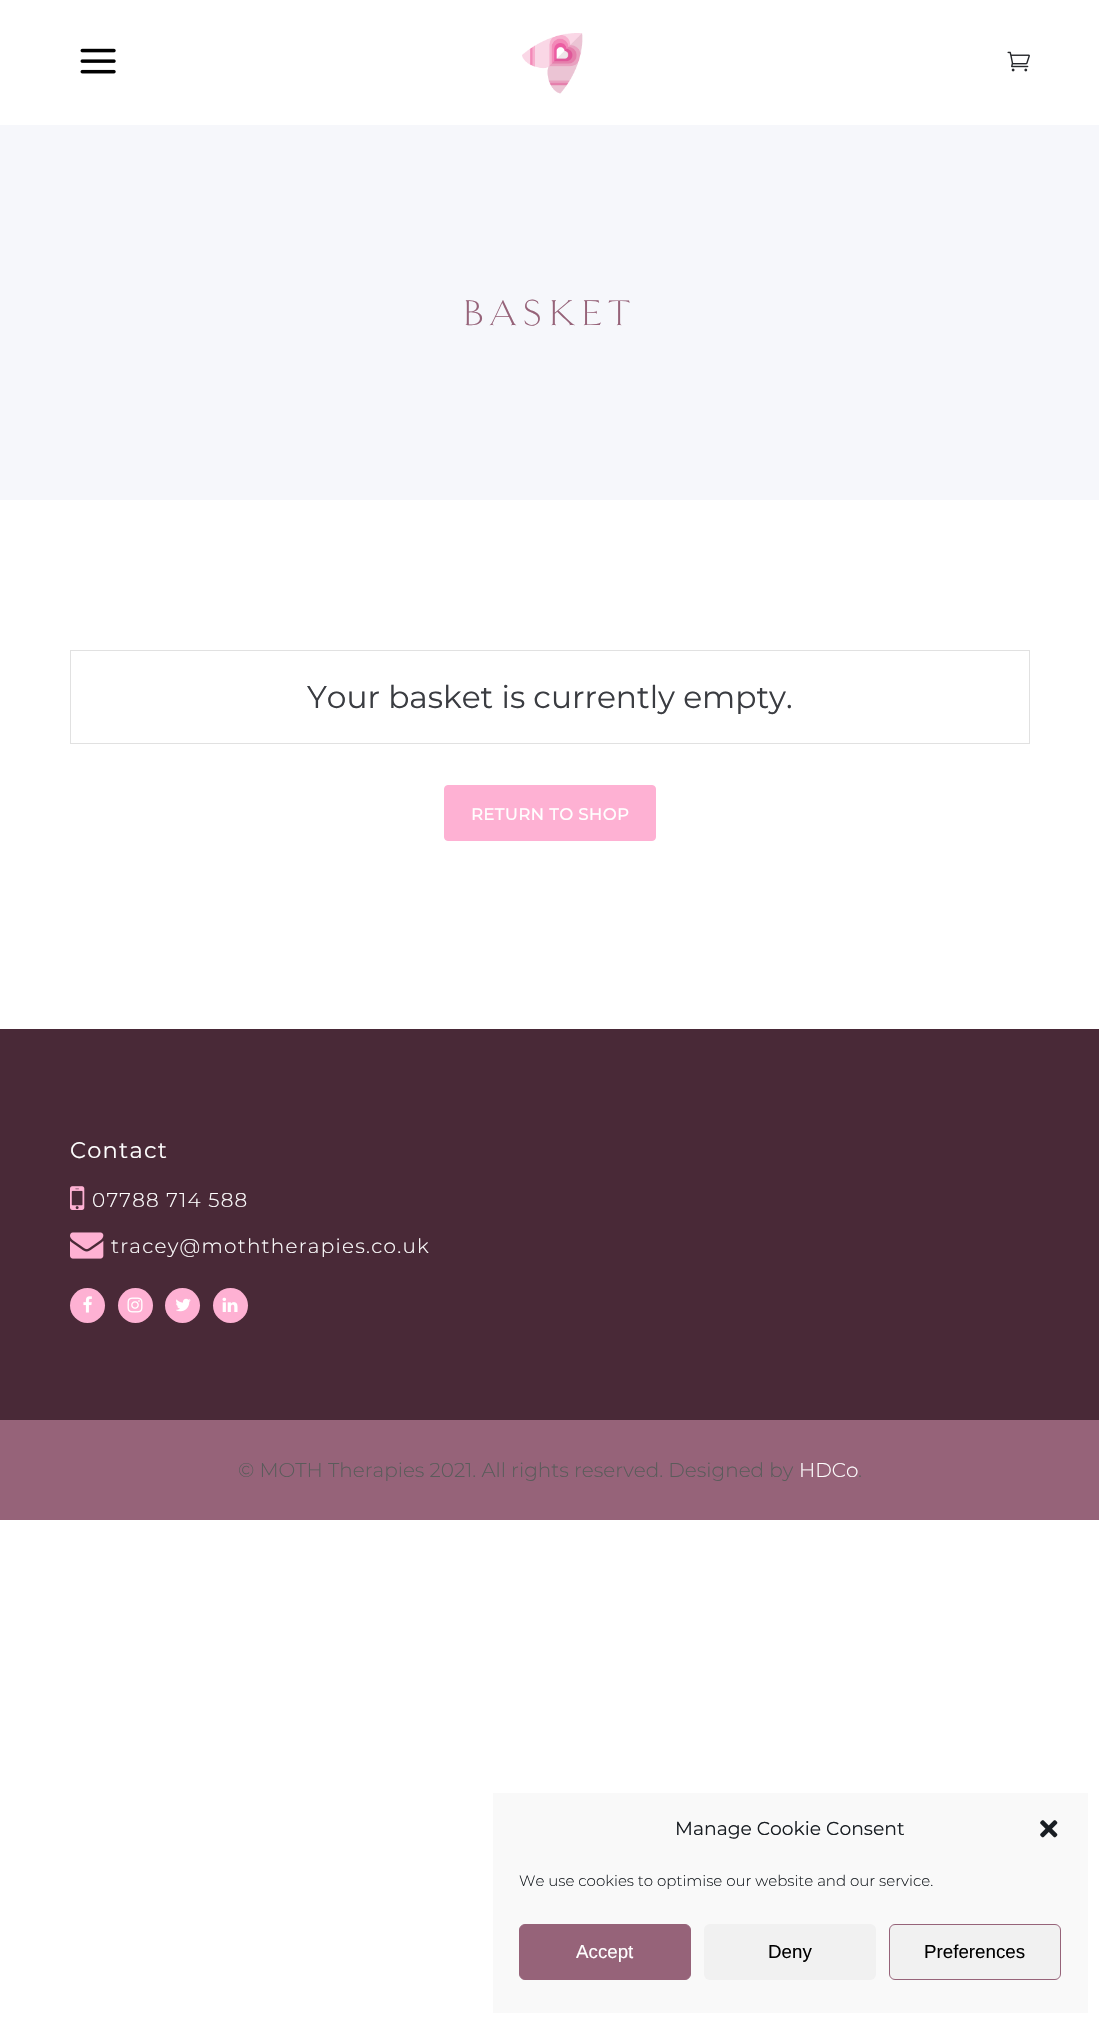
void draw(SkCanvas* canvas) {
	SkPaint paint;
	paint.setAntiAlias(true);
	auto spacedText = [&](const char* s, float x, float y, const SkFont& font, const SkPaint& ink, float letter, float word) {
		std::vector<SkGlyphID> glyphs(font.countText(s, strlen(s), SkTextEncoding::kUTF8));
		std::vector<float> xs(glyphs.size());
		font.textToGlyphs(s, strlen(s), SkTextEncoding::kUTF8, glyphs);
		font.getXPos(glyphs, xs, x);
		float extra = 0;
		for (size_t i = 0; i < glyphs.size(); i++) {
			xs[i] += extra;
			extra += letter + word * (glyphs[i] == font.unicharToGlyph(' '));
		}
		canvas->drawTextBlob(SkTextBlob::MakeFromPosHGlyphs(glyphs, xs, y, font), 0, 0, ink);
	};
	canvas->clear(0xffffffff);
	canvas->drawImageRect(SkImages::DeferredFromEncodedData(SkData::MakeFromFileName("img1.png")), SkRect::MakeXYWH(80, 48, 36, 26), SkSamplingOptions());
	canvas->drawImageRect(SkImages::DeferredFromEncodedData(SkData::MakeFromFileName("img2.png")), SkRect::MakeXYWH(522, 33, 61, 61), SkSamplingOptions());
	canvas->drawImageRect(SkImages::DeferredFromEncodedData(SkData::MakeFromFileName("img3.png")), SkRect::MakeXYWH(1007, 51, 23, 21), SkSamplingOptions());
	paint.setColor(0xfff6f7fb);
	canvas->drawRect(SkRect::MakeXYWH(0, 125, 1099, 375), paint);
	SkFont f1(fontMgr->matchFamilyStyle("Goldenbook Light", SkFontStyle(300, SkFontStyle::kNormal_Width, SkFontStyle::kUpright_Slant)), 37.5);
	f1.setSubpixel(true);
	paint.setColor(0xff966379);
	spacedText("BASKET", 463, 325, f1, paint, 6.25, 0);
	paint.setStroke(true);
	paint.setStrokeWidth(1);
	paint.setColor(0xffe1e1e1);
	canvas->drawRect(SkRect::MakeXYWH(70.5, 650.5, 959, 93), paint);
	SkFont f2(fontMgr->matchFamilyStyle("Montserrat", SkFontStyle::Normal()), 31.25);
	f2.setSubpixel(true);
	paint.setStroke(false);
	paint.setColor(0xff3a3c41);
	canvas->drawString("Your basket is currently empty.", 307, 708, f2, paint);
	paint.setColor(0xfffeb1d3);
	canvas->drawRoundRect(SkRect::MakeXYWH(444.5, 785.5, 211, 55), 3.5, 3.5, paint);
	paint.setStroke(true);
	canvas->drawRoundRect(SkRect::MakeXYWH(444.5, 785.5, 211, 55), 3.5, 3.5, paint);
	SkFont f3(fontMgr->matchFamilyStyle("Montserrat", SkFontStyle::Bold()), 16.25);
	f3.setSubpixel(true);
	paint.setStroke(false);
	paint.setColor(0xffffffff);
	spacedText("RETURN TO SHOP", 471, 820, f3, paint, 0.6, 0);
	paint.setColor(0xff492937);
	canvas->drawRect(SkRect::MakeXYWH(0, 1029, 1099, 391), paint);
	SkFont f4(fontMgr->matchFamilyStyle("Montserrat", SkFontStyle::Normal()), 22.5);
	f4.setSubpixel(true);
	paint.setColor(0xffffffff);
	spacedText("Contact", 70, 1158, f4, paint, 1.25, 0);
	canvas->drawImageRect(SkImages::DeferredFromEncodedData(SkData::MakeFromFileName("img4.png")), SkRect::MakeXYWH(70, 1186, 15, 24), SkSamplingOptions());
	SkFont f5(fontMgr->matchFamilyStyle("Montserrat", SkFontStyle(300, SkFontStyle::kNormal_Width, SkFontStyle::kUpright_Slant)), 20);
	f5.setSubpixel(true);
	spacedText("07788 714 588", 92, 1207, f5, paint, 1.25, 0);
	canvas->drawImageRect(SkImages::DeferredFromEncodedData(SkData::MakeFromFileName("img5.png")), SkRect::MakeXYWH(70, 1232, 34, 27), SkSamplingOptions());
	spacedText("tracey@moththerapies.co.uk", 111, 1253, f5, paint, 1.25, 0);
	paint.setColor(0xfffeb1d3);
	canvas->drawCircle(87.5, 1305.5, 17.5, paint);
	canvas->drawImageRect(SkImages::DeferredFromEncodedData(SkData::MakeFromFileName("img6.png")), SkRect::MakeXYWH(83, 1296, 9, 17), SkSamplingOptions());
	canvas->drawCircle(135.5, 1305.5, 17.5, paint);
	canvas->drawImageRect(SkImages::DeferredFromEncodedData(SkData::MakeFromFileName("img7.png")), SkRect::MakeXYWH(127, 1297, 16, 16), SkSamplingOptions());
	canvas->drawCircle(182.5, 1305.5, 17.5, paint);
	canvas->drawImageRect(SkImages::DeferredFromEncodedData(SkData::MakeFromFileName("img8.png")), SkRect::MakeXYWH(176, 1298, 15, 14), SkSamplingOptions());
	canvas->drawCircle(230.5, 1305.5, 17.5, paint);
	canvas->drawImageRect(SkImages::DeferredFromEncodedData(SkData::MakeFromFileName("img9.png")), SkRect::MakeXYWH(222, 1297, 16, 15), SkSamplingOptions());
	paint.setColor(0xff966379);
	canvas->drawRect(SkRect::MakeXYWH(0, 1420, 1099, 100), paint);
	paint.setColor(0xff5b5b5b);
	canvas->drawString("© MOTH Therapies 2021. All rights reserved. Designed by", 238, 1477, f5, paint);
	paint.setColor(0xffffffff);
	canvas->drawString("HDCo", 799, 1477, f5, paint);
	paint.setColor(0xff5b5b5b);
	canvas->drawString(".", 858, 1477, f5, paint);
	paint.setColor(0xfff9f9f9);
	canvas->drawRect(SkRect::MakeXYWH(493, 1793, 595, 220), paint);
	SkFont f6(fontMgr->matchFamilyStyle("Montserrat", SkFontStyle::Normal()), 18.75);
	f6.setSubpixel(true);
	paint.setColor(0xff191e23);
	canvas->drawString("Manage Cookie Consent", 675, 1835, f6, paint);
	canvas->drawImageRect(SkImages::DeferredFromEncodedData(SkData::MakeFromFileName("img10.png")), SkRect::MakeXYWH(1040, 1820, 18, 18), SkSamplingOptions());
	SkFont f7(fontMgr->matchFamilyStyle("Montserrat", SkFontStyle(300, SkFontStyle::kNormal_Width, SkFontStyle::kUpright_Slant)), 15);
	f7.setSubpixel(true);
	canvas->drawString("We use cookies to optimise our website and our service.", 519, 1886, f7, paint);
	paint.setColor(0xff966379);
	canvas->drawRoundRect(SkRect::MakeXYWH(519.5, 1924.5, 171, 55), 5.5, 5.5, paint);
	paint.setStroke(true);
	canvas->drawRoundRect(SkRect::MakeXYWH(519.5, 1924.5, 171, 55), 5.5, 5.5, paint);
	SkFont f8(fontMgr->matchFamilyStyle("Liberation Sans", SkFontStyle::Normal()), 18.75);
	f8.setSubpixel(true);
	paint.setStroke(false);
	paint.setColor(0xffffffff);
	canvas->drawString("Accept", 576, 1958, f8, paint);
	paint.setColor(0xfff1f1f1);
	canvas->drawRoundRect(SkRect::MakeXYWH(704, 1924, 172, 56), 6, 6, paint);
	paint.setColor(0xff000000);
	canvas->drawString("Deny", 768, 1958, f8, paint);
	paint.setColor(0xfff1f1f1);
	canvas->drawRoundRect(SkRect::MakeXYWH(889.5, 1924.5, 171, 55), 5.5, 5.5, paint);
	paint.setStroke(true);
	paint.setColor(0xff966379);
	canvas->drawRoundRect(SkRect::MakeXYWH(889.5, 1924.5, 171, 55), 5.5, 5.5, paint);
	paint.setStroke(false);
	paint.setColor(0xff000000);
	canvas->drawString("Preferences", 924, 1958, f8, paint);
}
